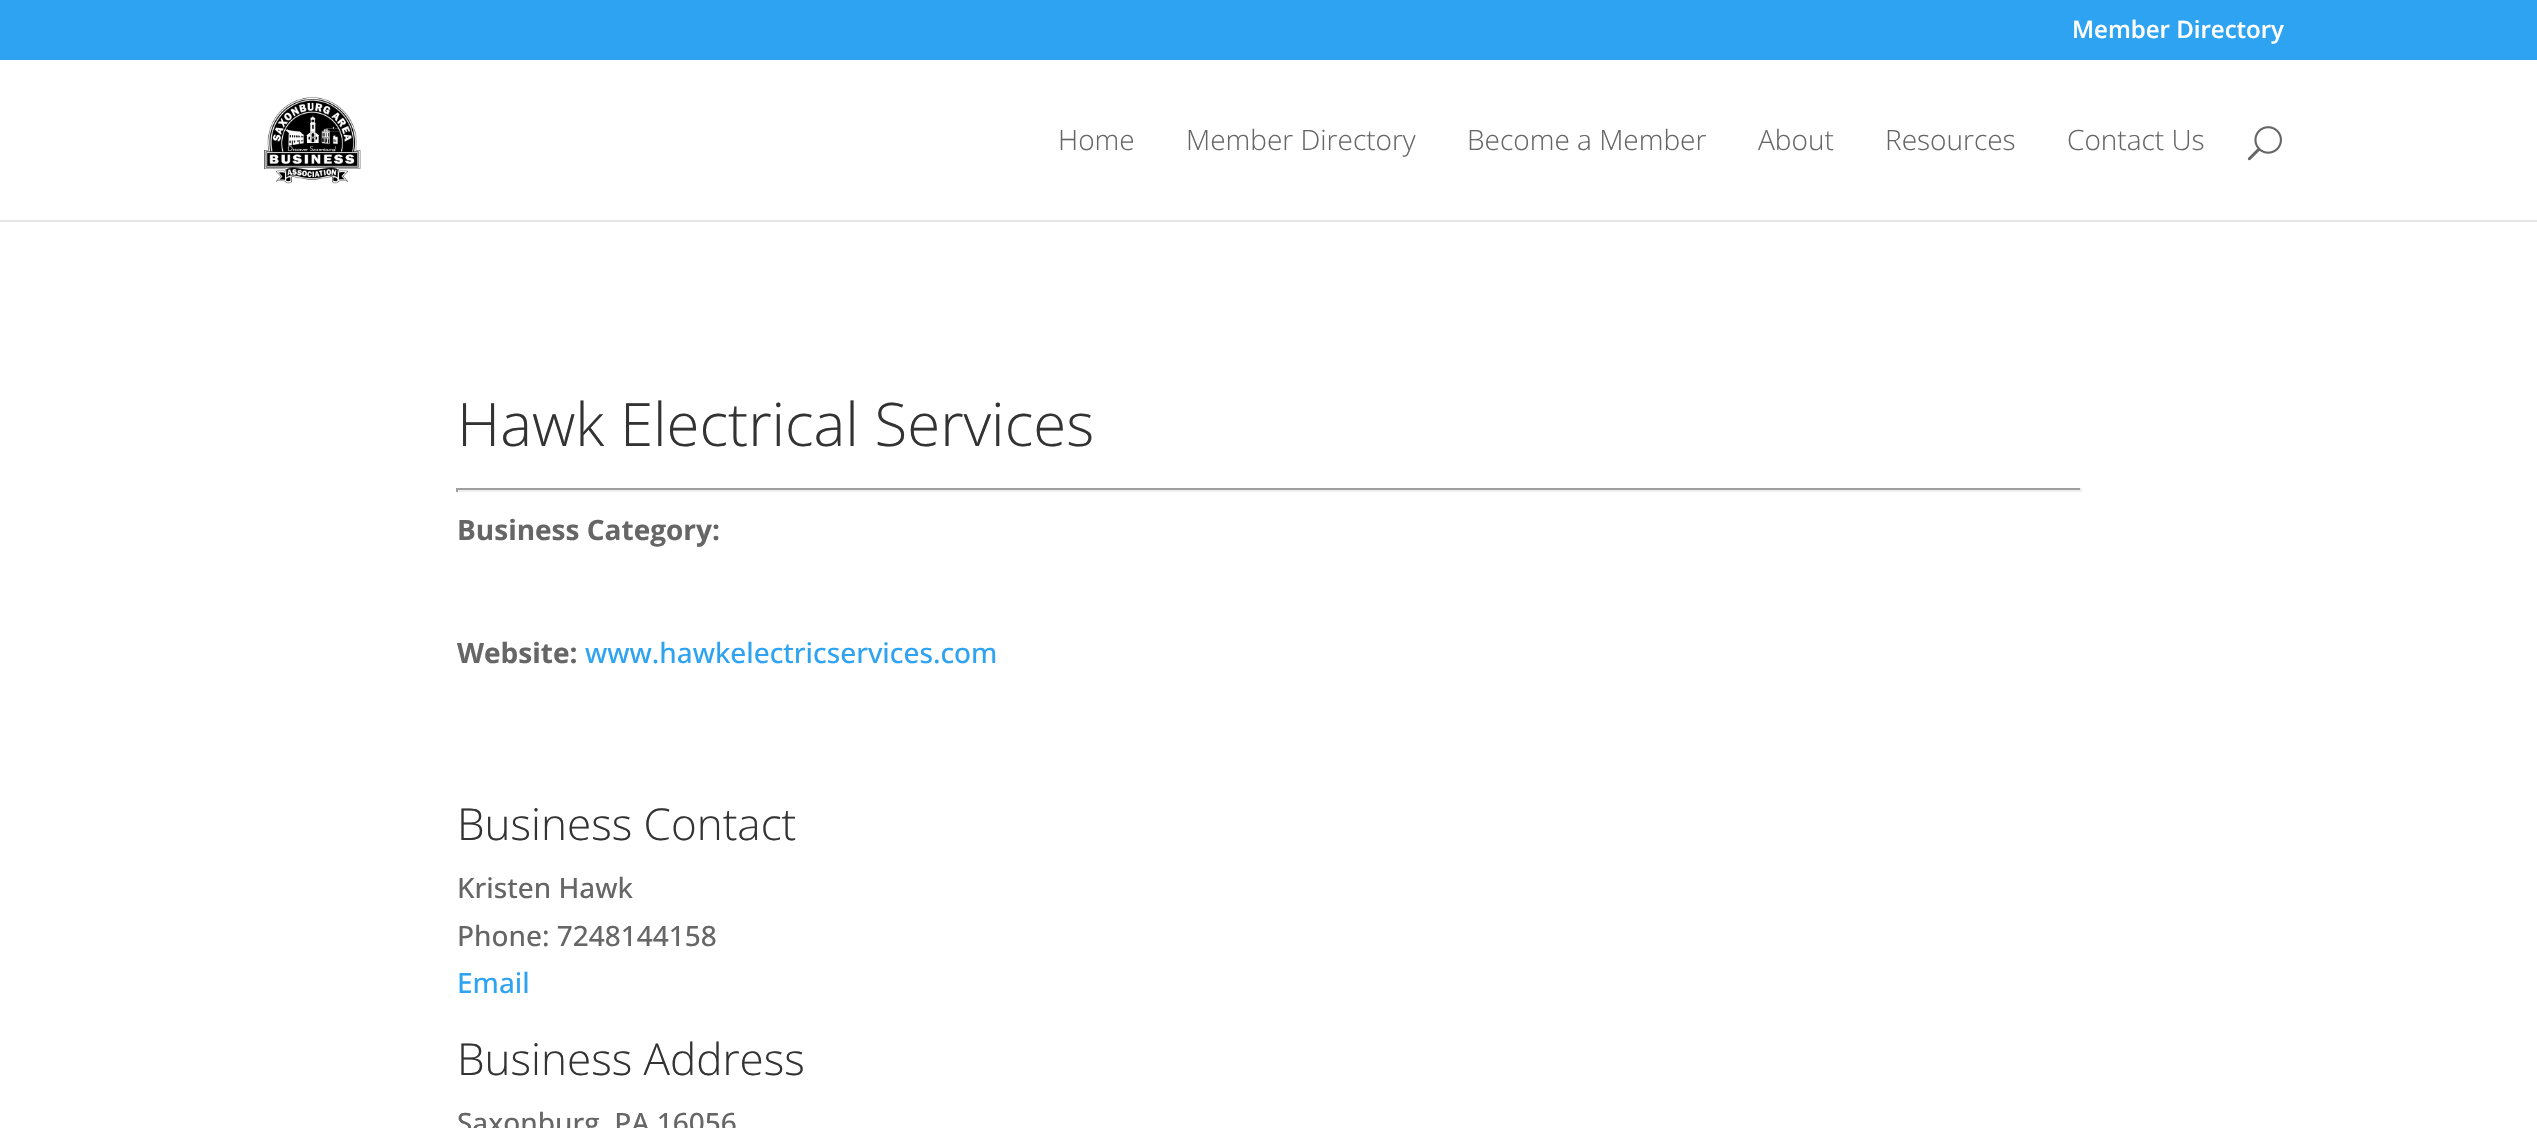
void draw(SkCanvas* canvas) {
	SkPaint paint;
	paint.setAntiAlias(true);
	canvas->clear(0xffffffff);
	paint.setColor(0xff2ea3f2);
	canvas->drawRect(SkRect::MakeXYWH(0, 0, 2537, 60), paint);
	SkFont f1(fontMgr->matchFamilyStyle("Open Sans", SkFontStyle(600, SkFontStyle::kNormal_Width, SkFontStyle::kUpright_Slant)), 24);
	f1.setSubpixel(true);
	paint.setColor(0xffffffff);
	canvas->drawString("Member Directory", 2072, 38, f1, paint);
	paint.setColor(0xffe6e6e6);
	canvas->drawRect(SkRect::MakeXYWH(0, 220, 2537, 2), paint);
	canvas->drawImageRect(SkImages::DeferredFromEncodedData(SkData::MakeFromFileName("img1.png")), SkRect::MakeXYWH(264, 97, 97, 87), SkSamplingOptions());
	SkFont f2(fontMgr->matchFamilyStyle("Open Sans", SkFontStyle(300, SkFontStyle::kNormal_Width, SkFontStyle::kUpright_Slant)), 28);
	f2.setSubpixel(true);
	paint.setColor(0xff666666);
	canvas->drawString("Home", 1058, 150, f2, paint);
	canvas->drawString("Member Directory", 1186, 150, f2, paint);
	canvas->drawString("Become a Member", 1467, 150, f2, paint);
	canvas->drawString("About", 1758, 150, f2, paint);
	canvas->drawString("Resources", 1885, 150, f2, paint);
	canvas->drawString("Contact Us", 2067, 150, f2, paint);
	canvas->drawImageRect(SkImages::DeferredFromEncodedData(SkData::MakeFromFileName("img2.png")), SkRect::MakeXYWH(2247, 126, 35, 35), SkSamplingOptions());
	SkFont f3(fontMgr->matchFamilyStyle("Open Sans", SkFontStyle(300, SkFontStyle::kNormal_Width, SkFontStyle::kUpright_Slant)), 60);
	f3.setSubpixel(true);
	paint.setColor(0xff333333);
	canvas->drawString("Hawk Electrical Services", 457, 446, f3, paint);
	paint.setColor(0xff9f9f9f);
	canvas->drawRect(SkRect::MakeXYWH(456, 488, 1626, 2), paint);
	paint.setColor(0xffeeeeee);
	canvas->drawRect(SkRect::MakeXYWH(2080, 488, 2, 4), paint);
	canvas->drawRect(SkRect::MakeXYWH(456, 490, 1626, 2), paint);
	paint.setColor(0xff9f9f9f);
	canvas->drawRect(SkRect::MakeXYWH(456, 488, 2, 4), paint);
	SkFont f4(fontMgr->matchFamilyStyle("Open Sans", SkFontStyle::Bold()), 28);
	f4.setSubpixel(true);
	paint.setColor(0xff666666);
	canvas->drawString("Business Category:", 457, 540, f4, paint);
	canvas->drawString("Website:", 457, 663, f4, paint);
	SkFont f5(fontMgr->matchFamilyStyle("Open Sans", SkFontStyle(500, SkFontStyle::kNormal_Width, SkFontStyle::kUpright_Slant)), 28);
	f5.setSubpixel(true);
	paint.setColor(0xff2ea3f2);
	canvas->drawString("www.hawkelectricservices.com", 585, 663, f5, paint);
	SkFont f6(fontMgr->matchFamilyStyle("Open Sans", SkFontStyle(300, SkFontStyle::kNormal_Width, SkFontStyle::kUpright_Slant)), 44);
	f6.setSubpixel(true);
	paint.setColor(0xff333333);
	canvas->drawString("Business Contact", 457, 840, f6, paint);
	paint.setColor(0xff666666);
	canvas->drawString("Kristen Hawk", 457, 898, f5, paint);
	canvas->drawString("Phone: 7248144158", 457, 946, f5, paint);
	paint.setColor(0xff2ea3f2);
	canvas->drawString("Email", 457, 993, f5, paint);
	paint.setColor(0xff333333);
	canvas->drawString("Business Address", 457, 1075, f6, paint);
	paint.setColor(0xff666666);
	canvas->drawString("Saxonburg, PA 16056", 457, 1133, f5, paint);
}
